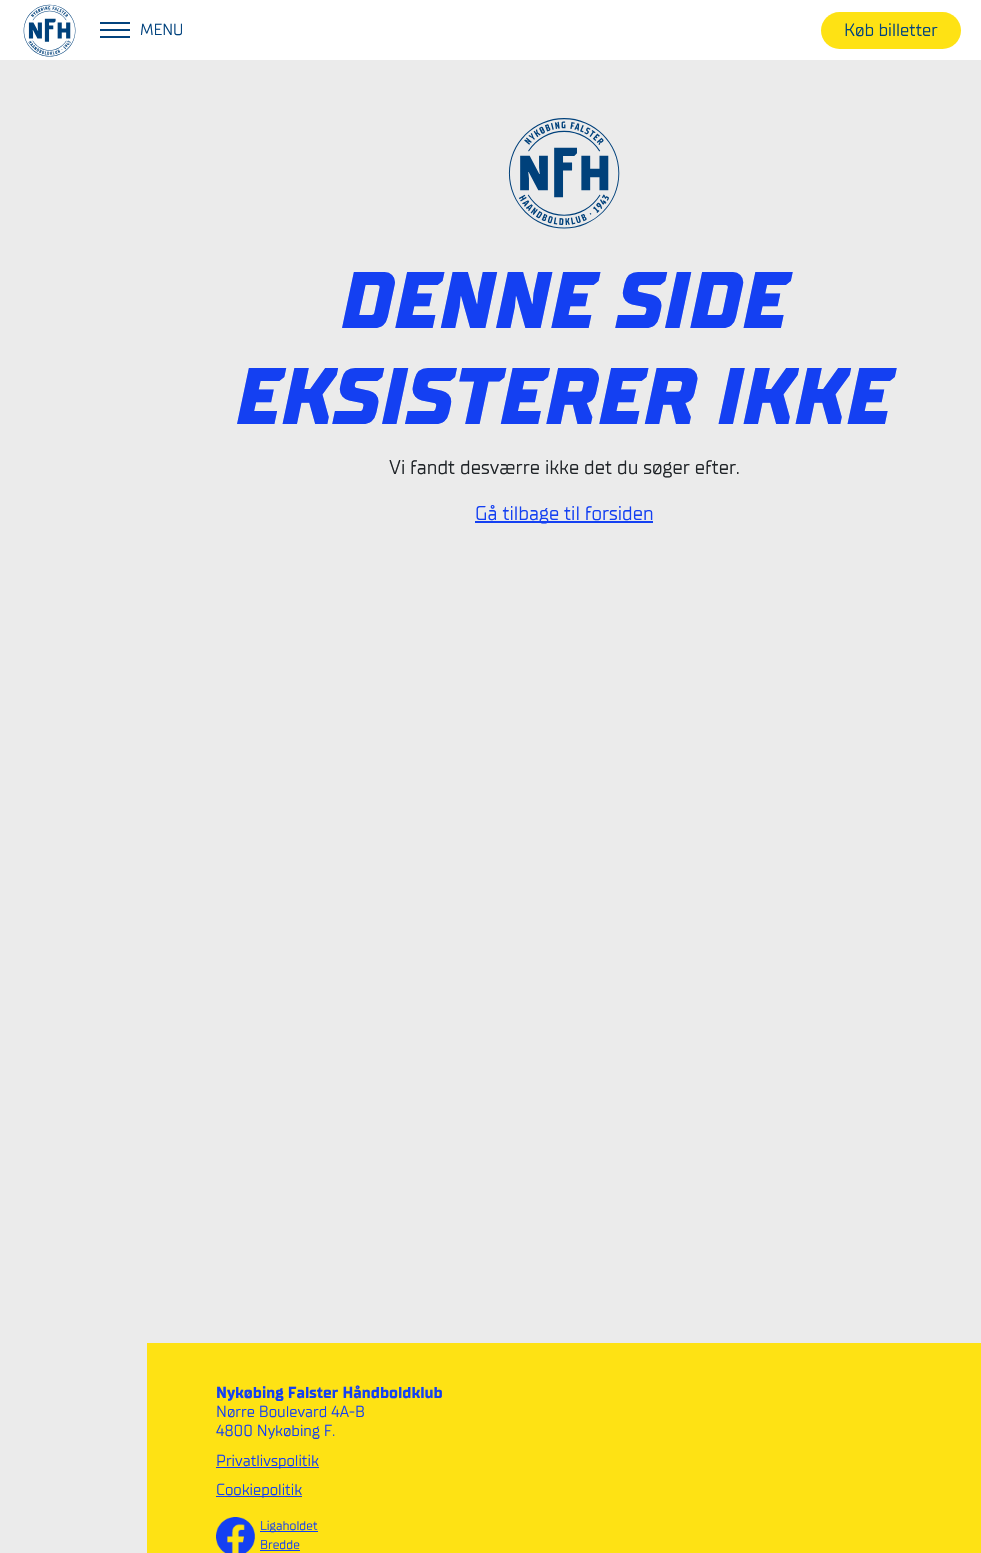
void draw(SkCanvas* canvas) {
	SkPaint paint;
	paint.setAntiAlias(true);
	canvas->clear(0xffffffff);
	canvas->drawImageRect(SkImages::DeferredFromEncodedData(SkData::MakeFromFileName("img1.png")), SkRect::MakeXYWH(23, 4, 53, 53), SkSamplingOptions());
	paint.setColor(0xff02437e);
	canvas->drawRect(SkRect::MakeXYWH(100, 22, 30, 2), paint);
	canvas->drawRect(SkRect::MakeXYWH(100, 29, 30, 2), paint);
	canvas->drawRect(SkRect::MakeXYWH(100, 36, 30, 2), paint);
	SkFont f1(fontMgr->matchFamilyStyle("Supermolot", SkFontStyle::Normal()), 16);
	f1.setSubpixel(true);
	canvas->drawString("MENU", 140, 35, f1, paint);
	paint.setColor(0xfffee214);
	canvas->drawRoundRect(SkRect::MakeXYWH(821, 12, 140, 37), 18.5, 18.5, paint);
	SkFont f2(fontMgr->matchFamilyStyle("Supermolot", SkFontStyle::Normal()), 18);
	f2.setSubpixel(true);
	paint.setColor(0xff02437e);
	canvas->drawString("Køb billetter", 844, 36, f2, paint);
	paint.setColor(0xffebebeb);
	canvas->drawRect(SkRect::MakeXYWH(0, 60, 981, 1493), paint);
	canvas->drawImageRect(SkImages::DeferredFromEncodedData(SkData::MakeFromFileName("img2.png")), SkRect::MakeXYWH(508, 118, 112, 111), SkSamplingOptions());
	SkFont f3(fontMgr->matchFamilyStyle("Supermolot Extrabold", SkFontStyle(800, SkFontStyle::kNormal_Width, SkFontStyle::kItalic_Slant)), 80);
	f3.setSubpixel(true);
	paint.setColor(0xff1440f2);
	canvas->drawString("DENNE SIDE", 341, 328, f3, paint);
	canvas->drawString("EKSISTERER IKKE", 236, 424, f3, paint);
	SkFont f4(fontMgr->matchFamilyStyle("Supermolot", SkFontStyle::Normal()), 20);
	f4.setSubpixel(true);
	paint.setColor(0xff212529);
	canvas->drawString("Vi fandt desværre ikke det du søger efter.", 389, 474, f4, paint);
	paint.setColor(0xff1440f2);
	canvas->drawRect(SkRect::MakeXYWH(475, 521, 178, 2), paint);
	canvas->drawString("Gå tilbage til forsiden", 475, 520, f4, paint);
	paint.setColor(0xfffee214);
	canvas->drawRect(SkRect::MakeXYWH(147, 1343, 834, 210), paint);
	SkFont f5(fontMgr->matchFamilyStyle("Supermolot", SkFontStyle::Bold()), 16);
	f5.setSubpixel(true);
	paint.setColor(0xff1440f2);
	canvas->drawString("Nykøbing Falster Håndboldklub", 216, 1398, f5, paint);
	canvas->drawString("Nørre Boulevard 4A-B", 216, 1417, f1, paint);
	canvas->drawString("4800 Nykøbing F.", 216, 1436, f1, paint);
	canvas->drawRect(SkRect::MakeXYWH(216, 1467, 103, 1), paint);
	canvas->drawString("Privatlivspolitik", 216, 1466, f1, paint);
	canvas->drawRect(SkRect::MakeXYWH(216, 1496, 86, 1), paint);
	canvas->drawString("Cookiepolitik", 216, 1495, f1, paint);
	canvas->drawImageRect(SkImages::DeferredFromEncodedData(SkData::MakeFromFileName("img3.png")), SkRect::MakeXYWH(216, 1517, 39, 36), SkSamplingOptions());
	canvas->drawRect(SkRect::MakeXYWH(260, 1531, 58, 1), paint);
	SkFont f6(fontMgr->matchFamilyStyle("Supermolot", SkFontStyle::Normal()), 13);
	f6.setSubpixel(true);
	canvas->drawString("Ligaholdet", 260, 1530, f6, paint);
	canvas->drawString("Bredde", 260, 1549, f6, paint);
	canvas->drawRect(SkRect::MakeXYWH(260, 1550, 40, 1), paint);
}
